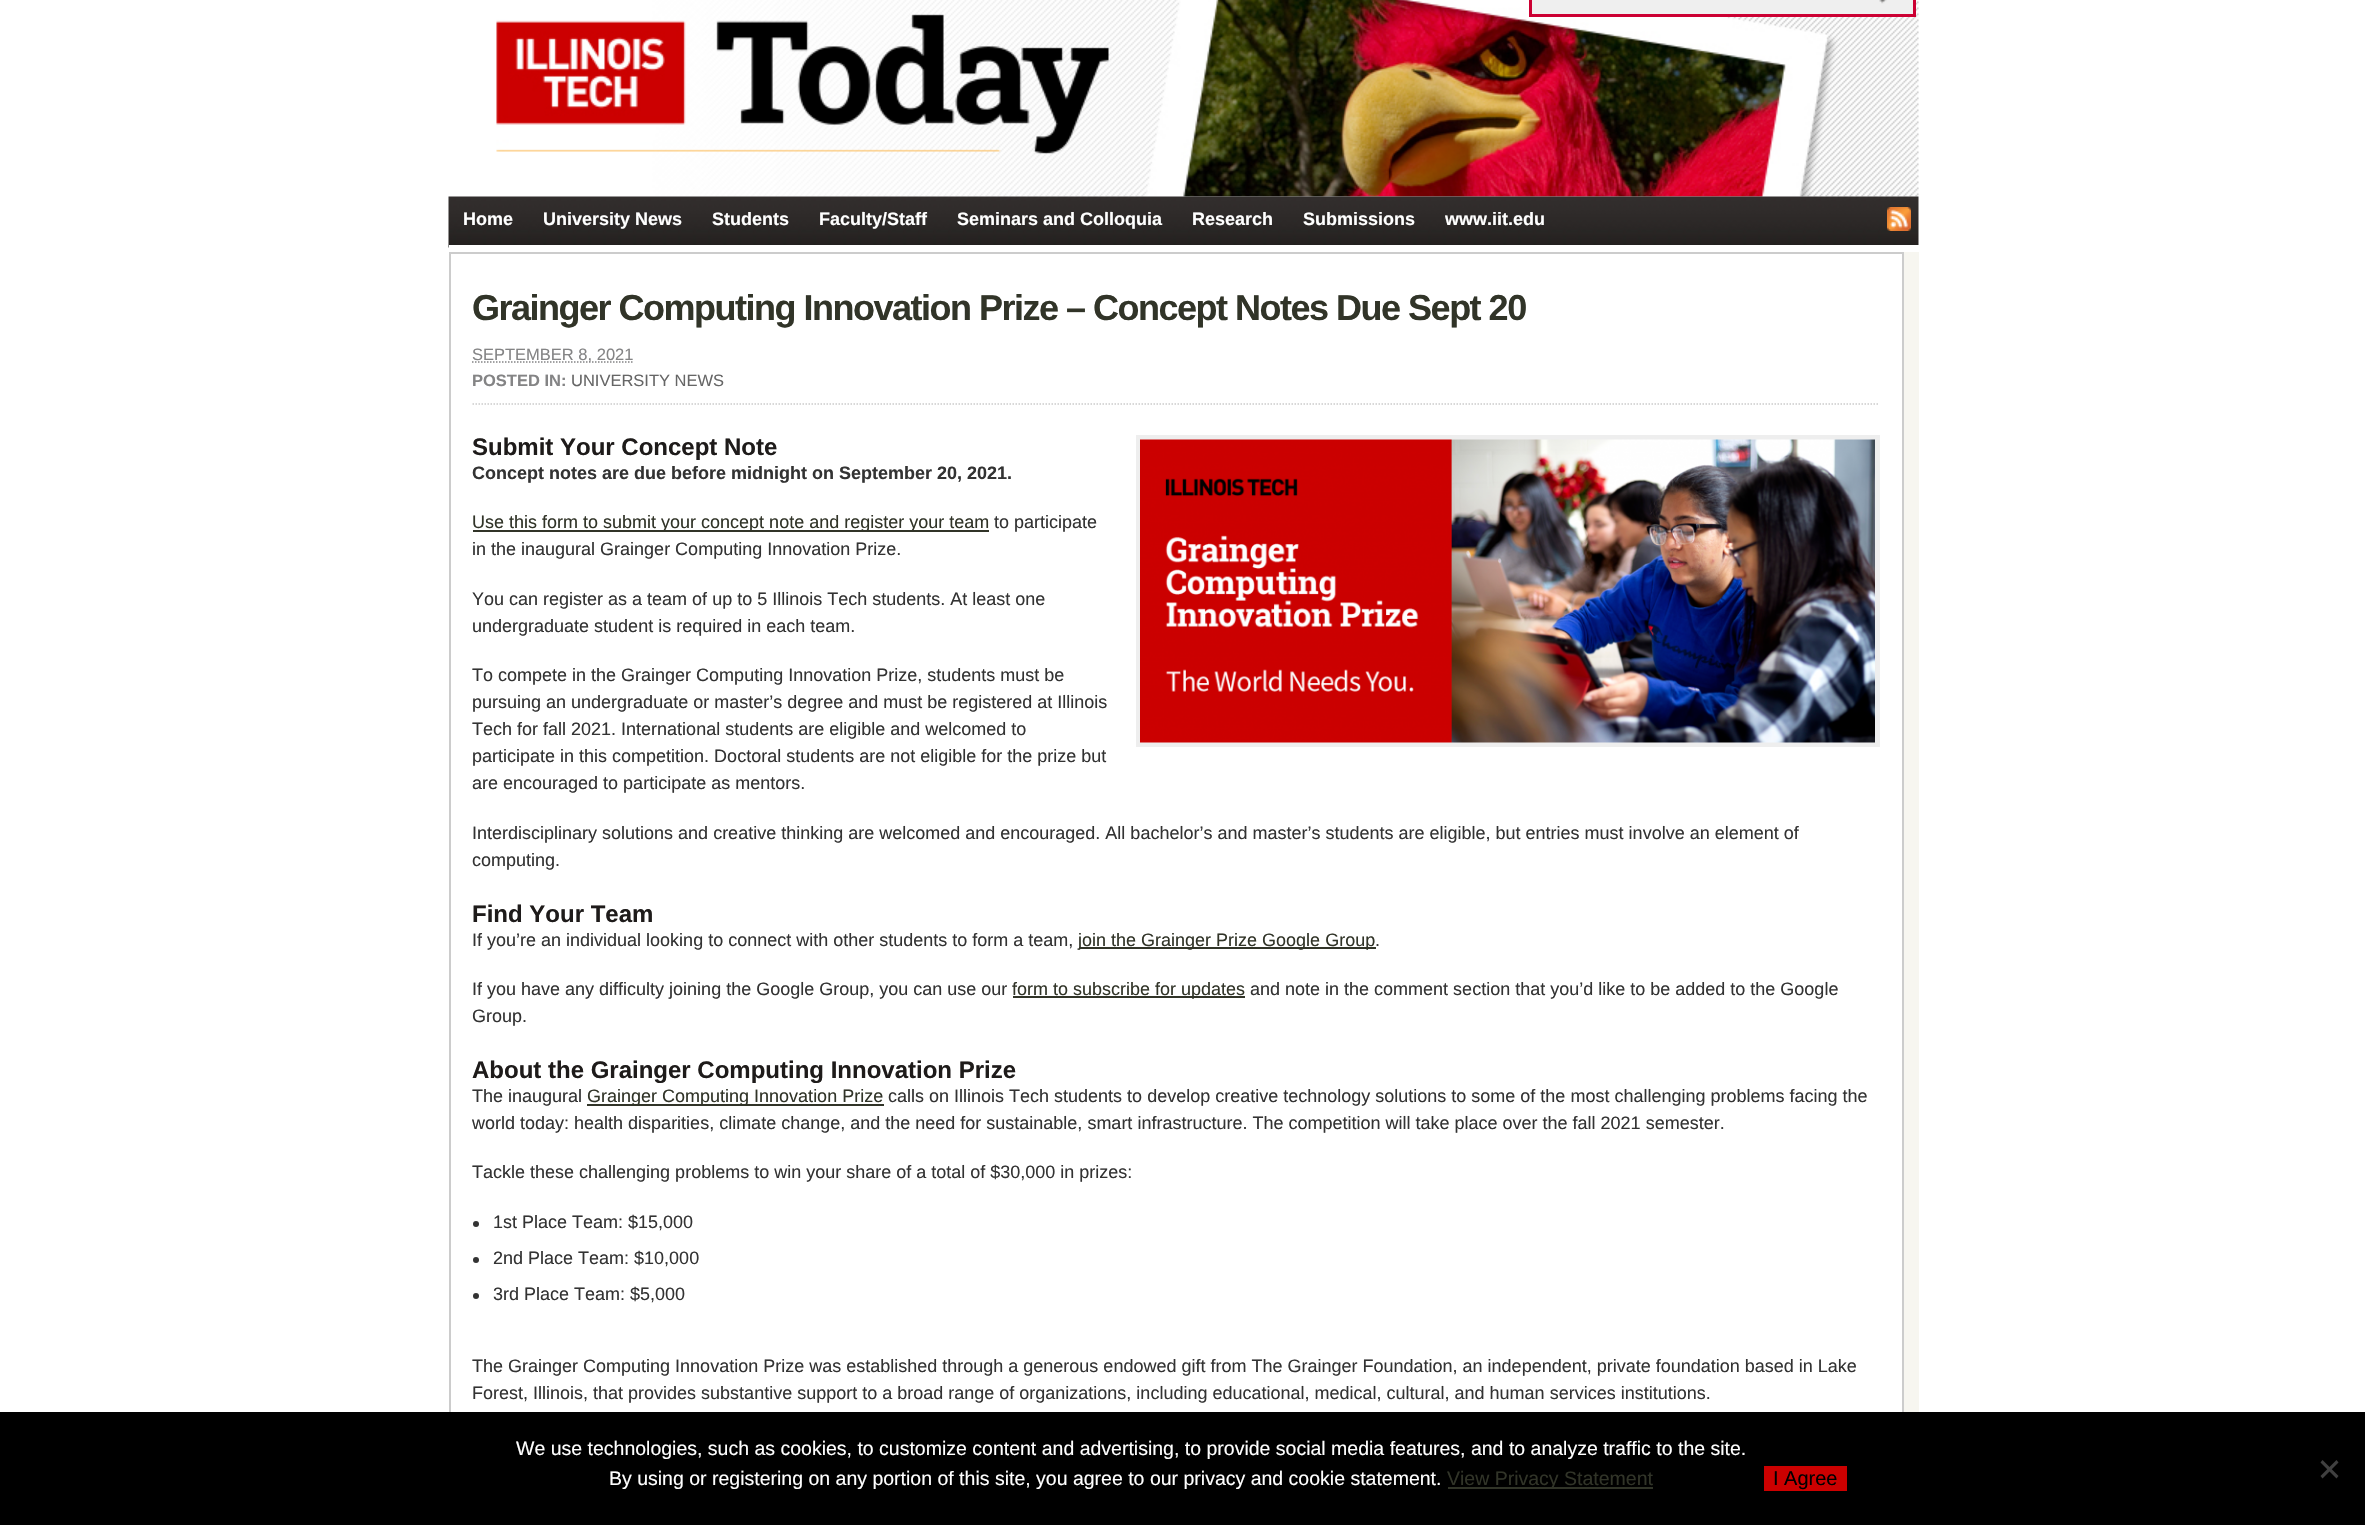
void draw(SkCanvas* canvas) {
	SkPaint paint;
	paint.setAntiAlias(true);
	auto spacedText = [&](const char* s, float x, float y, const SkFont& font, const SkPaint& ink, float letter, float word) {
		std::vector<SkGlyphID> glyphs(font.countText(s, strlen(s), SkTextEncoding::kUTF8));
		std::vector<float> xs(glyphs.size());
		font.textToGlyphs(s, strlen(s), SkTextEncoding::kUTF8, glyphs);
		font.getXPos(glyphs, xs, x);
		float extra = 0;
		for (size_t i = 0; i < glyphs.size(); i++) {
			xs[i] += extra;
			extra += letter + word * (glyphs[i] == font.unicharToGlyph(' '));
		}
		canvas->drawTextBlob(SkTextBlob::MakeFromPosHGlyphs(glyphs, xs, y, font), 0, 0, ink);
	};
	auto svgPath = [&](const char* data, bool evenOdd = false) {
		SkPath result = *SkParsePath::FromSVGString(data);
		if (evenOdd) result.setFillType(SkPathFillType::kEvenOdd);
		return result;
	};
	canvas->clear(0xffffffff);
	canvas->drawImageRect(SkImages::DeferredFromEncodedData(SkData::MakeFromFileName("img2.png")), SkRect::MakeXYWH(496, 0, 1423, 197), SkSamplingOptions());
	paint.setColor(0xffefefef);
	canvas->drawRect(SkRect::MakeXYWH(1530.5, -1.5, 384, 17), paint);
	paint.setStroke(true);
	paint.setStrokeWidth(3);
	paint.setColor(0xffcc0033);
	canvas->drawRect(SkRect::MakeXYWH(1530.5, -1.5, 384, 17), paint);
	canvas->drawImageRect(SkImages::DeferredFromEncodedData(SkData::MakeFromFileName("img1.png")), SkRect::MakeXYWH(1879, 0, 8, 4), SkSamplingOptions());
	canvas->drawImageRect(SkImages::DeferredFromEncodedData(SkData::MakeFromFileName("img3.png")), SkRect::MakeXYWH(448, 196, 1471, 52), SkSamplingOptions());
	SkFont f1(fontMgr->matchFamilyStyle("Liberation Sans", SkFontStyle::Bold()), 18);
	f1.setSubpixel(true);
	paint.setStroke(false);
	paint.setColor(0xffffffff);
	canvas->drawString("Home", 463, 225, f1, paint);
	canvas->drawString("University News", 543, 225, f1, paint);
	canvas->drawString("Students", 712, 225, f1, paint);
	canvas->drawString("Faculty/Staff", 819, 225, f1, paint);
	canvas->drawString("Seminars and Colloquia", 957, 225, f1, paint);
	canvas->drawString("Research", 1192, 225, f1, paint);
	canvas->drawString("Submissions", 1303, 225, f1, paint);
	canvas->drawString("www.iit.edu", 1445, 225, f1, paint);
	canvas->drawImageRect(SkImages::DeferredFromEncodedData(SkData::MakeFromFileName("img4.png")), SkRect::MakeXYWH(1887, 207, 24, 24), SkSamplingOptions());
	canvas->drawRect(SkRect::MakeXYWH(449, 245, 1470, 3), paint);
	paint.setColor(0xfff7f6f0);
	canvas->drawRect(SkRect::MakeXYWH(1904, 252, 15, 1160), paint);
	paint.setStroke(true);
	paint.setStrokeWidth(2);
	paint.setColor(0xffcccccc);
	canvas->drawRect(SkRect::MakeXYWH(450, 253, 1453, 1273), paint);
	SkFont f2(fontMgr->matchFamilyStyle("Liberation Sans", SkFontStyle::Bold()), 36);
	f2.setSubpixel(true);
	paint.setStroke(false);
	paint.setColor(0xff313428);
	spacedText("Grainger Computing Innovation Prize – Concept Notes Due Sept 20", 472, 320, f2, paint, -1.5, 0);
	paint.setStroke(true);
	paint.setStrokeWidth(1.5);
	paint.setColor(0xffcccccc);
	paint.setPathEffect(SkDashPathEffect::Make({{1.5f, 1.5f}}, 0));
	canvas->drawPath(svgPath("M472.5 404H1879.5"), paint);
	paint.setPathEffect(nullptr);
	paint.setColor(0xff848485);
	paint.setPathEffect(SkDashPathEffect::Make({{1.5f, 1.5f}}, 0));
	canvas->drawPath(svgPath("M472 362H633"), paint);
	paint.setPathEffect(nullptr);
	SkFont f3(fontMgr->matchFamilyStyle("Liberation Sans", SkFontStyle::Normal()), 16.5);
	f3.setSubpixel(true);
	paint.setStroke(false);
	canvas->drawString("SEPTEMBER 8, 2021", 472, 360, f3, paint);
	SkFont f4(fontMgr->matchFamilyStyle("Liberation Sans", SkFontStyle::Bold()), 16.5);
	f4.setSubpixel(true);
	canvas->drawString("POSTED IN:", 472, 386, f4, paint);
	paint.setColor(0xff666666);
	canvas->drawString("UNIVERSITY NEWS", 571, 386, f3, paint);
	SkFont f5(fontMgr->matchFamilyStyle("Liberation Sans", SkFontStyle::Bold()), 24);
	f5.setSubpixel(true);
	paint.setColor(0xff1e1b1a);
	canvas->drawString("Submit Your Concept Note", 472, 455, f5, paint);
	paint.setStroke(true);
	paint.setStrokeWidth(5);
	paint.setColor(0xffeeeeee);
	canvas->drawRect(SkRect::MakeXYWH(1138.5, 437.5, 739, 307), paint);
	canvas->drawImageRect(SkImages::DeferredFromEncodedData(SkData::MakeFromFileName("img5.png")), SkRect::MakeXYWH(1140, 439, 735, 304), SkSamplingOptions());
	paint.setStroke(false);
	paint.setColor(0xff333333);
	canvas->drawString("Concept notes are due before midnight on September 20, 2021.", 472, 479, f1, paint);
	paint.setColor(0xff313428);
	canvas->drawRect(SkRect::MakeXYWH(473, 530, 516, 2), paint);
	SkFont f6(fontMgr->matchFamilyStyle("Liberation Sans", SkFontStyle::Normal()), 18);
	f6.setSubpixel(true);
	canvas->drawString("Use this form to submit your concept note and register your team", 472, 528, f6, paint);
	paint.setColor(0xff333333);
	canvas->drawString("to participate", 994, 528, f6, paint);
	canvas->drawString("in the inaugural Grainger Computing Innovation Prize.", 472, 555, f6, paint);
	canvas->drawString("You can register as a team of up to 5 Illinois Tech students. At least one", 472, 605, f6, paint);
	canvas->drawString("undergraduate student is required in each team.", 472, 632, f6, paint);
	canvas->drawString("To compete in the Grainger Computing Innovation Prize, students must be", 472, 681, f6, paint);
	canvas->drawString("pursuing an undergraduate or master’s degree and must be registered at Illinois", 472, 708, f6, paint);
	canvas->drawString("Tech for fall 2021. International students are eligible and welcomed to", 472, 735, f6, paint);
	canvas->drawString("participate in this competition. Doctoral students are not eligible for the prize but", 472, 762, f6, paint);
	canvas->drawString("are encouraged to participate as mentors.", 472, 789, f6, paint);
	canvas->drawString("Interdisciplinary solutions and creative thinking are welcomed and encouraged. All bachelor’s and master’s students are eligible, but entries must involve an element of", 472, 839, f6, paint);
	canvas->drawString("computing.", 472, 866, f6, paint);
	paint.setColor(0xff1e1b1a);
	canvas->drawString("Find Your Team", 472, 922, f5, paint);
	paint.setColor(0xff333333);
	canvas->drawString("If you’re an individual looking to connect with other students to form a team,", 472, 946, f6, paint);
	paint.setColor(0xff313428);
	canvas->drawRect(SkRect::MakeXYWH(1079, 947, 297, 2), paint);
	canvas->drawString("join the Grainger Prize Google Group", 1078, 946, f6, paint);
	paint.setColor(0xff333333);
	canvas->drawString(".", 1375, 946, f6, paint);
	canvas->drawString("If you have any difficulty joining the Google Group, you can use our", 472, 995, f6, paint);
	paint.setColor(0xff313428);
	canvas->drawRect(SkRect::MakeXYWH(1013, 996, 232, 2), paint);
	canvas->drawString("form to subscribe for updates", 1012, 995, f6, paint);
	paint.setColor(0xff333333);
	canvas->drawString("and note in the comment section that you’d like to be added to the Google", 1250, 995, f6, paint);
	canvas->drawString("Group.", 472, 1022, f6, paint);
	paint.setColor(0xff1e1b1a);
	canvas->drawString("About the Grainger Computing Innovation Prize", 472, 1078, f5, paint);
	paint.setColor(0xff333333);
	canvas->drawString("The inaugural", 472, 1102, f6, paint);
	paint.setColor(0xff313428);
	canvas->drawRect(SkRect::MakeXYWH(587, 1104, 297, 2), paint);
	canvas->drawString("Grainger Computing Innovation Prize", 587, 1102, f6, paint);
	paint.setColor(0xff333333);
	canvas->drawString("calls on Illinois Tech students to develop creative technology solutions to some of the most challenging problems facing the", 888, 1102, f6, paint);
	canvas->drawString("world today: health disparities, climate change, and the need for sustainable, smart infrastructure. The competition will take place over the fall 2021 semester.", 472, 1129, f6, paint);
	canvas->drawString("Tackle these challenging problems to win your share of a total of $30,000 in prizes:", 472, 1178, f6, paint);
	canvas->drawCircle(476, 1224, 3, paint);
	canvas->drawString("1st Place Team: $15,000", 493, 1228, f6, paint);
	canvas->drawCircle(476, 1260, 3, paint);
	canvas->drawString("2nd Place Team: $10,000", 493, 1264, f6, paint);
	canvas->drawCircle(476, 1296, 3, paint);
	canvas->drawString("3rd Place Team: $5,000", 493, 1300, f6, paint);
	canvas->drawString("The Grainger Computing Innovation Prize was established through a generous endowed gift from The Grainger Foundation, an independent, private foundation based in Lake", 472, 1372, f6, paint);
	canvas->drawString("Forest, Illinois, that provides substantive support to a broad range of organizations, including educational, medical, cultural, and human services institutions.", 472, 1399, f6, paint);
	paint.setColor(0xff000000);
	canvas->drawRect(SkRect::MakeXYWH(0, 1412, 2365, 113), paint);
	SkFont f7(fontMgr->matchFamilyStyle("Liberation Sans", SkFontStyle::Normal()), 19.5);
	f7.setSubpixel(true);
	paint.setColor(0xffffffff);
	canvas->drawString("We use technologies, such as cookies, to customize content and advertising, to provide social media features, and to analyze traffic to the site.", 516, 1455, f7, paint);
	canvas->drawString("By using or registering on any portion of this site, you agree to our privacy and cookie statement.", 609, 1485, f7, paint);
	paint.setColor(0xff313428);
	canvas->drawRect(SkRect::MakeXYWH(1448, 1487, 205, 2), paint);
	canvas->drawString("View Privacy Statement", 1447, 1485, f7, paint);
	paint.setColor(0xffcc0000);
	canvas->drawRect(SkRect::MakeXYWH(1764, 1466, 83, 25), paint);
	SkFont f8(fontMgr->matchFamilyStyle("Liberation Sans", SkFontStyle::Normal()), 20);
	f8.setSubpixel(true);
	paint.setColor(0xff000000);
	canvas->drawString("I Agree", 1773, 1485, f8, paint);
	paint.setColor(0xff404040);
	canvas->drawPath(svgPath("M2336.5 1460L2338.5 1462.5L2322.5 1478.5L2320.5 1476Z"), paint);
	canvas->drawPath(svgPath("M2320.5 1462.5L2322.5 1460L2338.5 1476L2336.5 1478.5Z"), paint);
}
